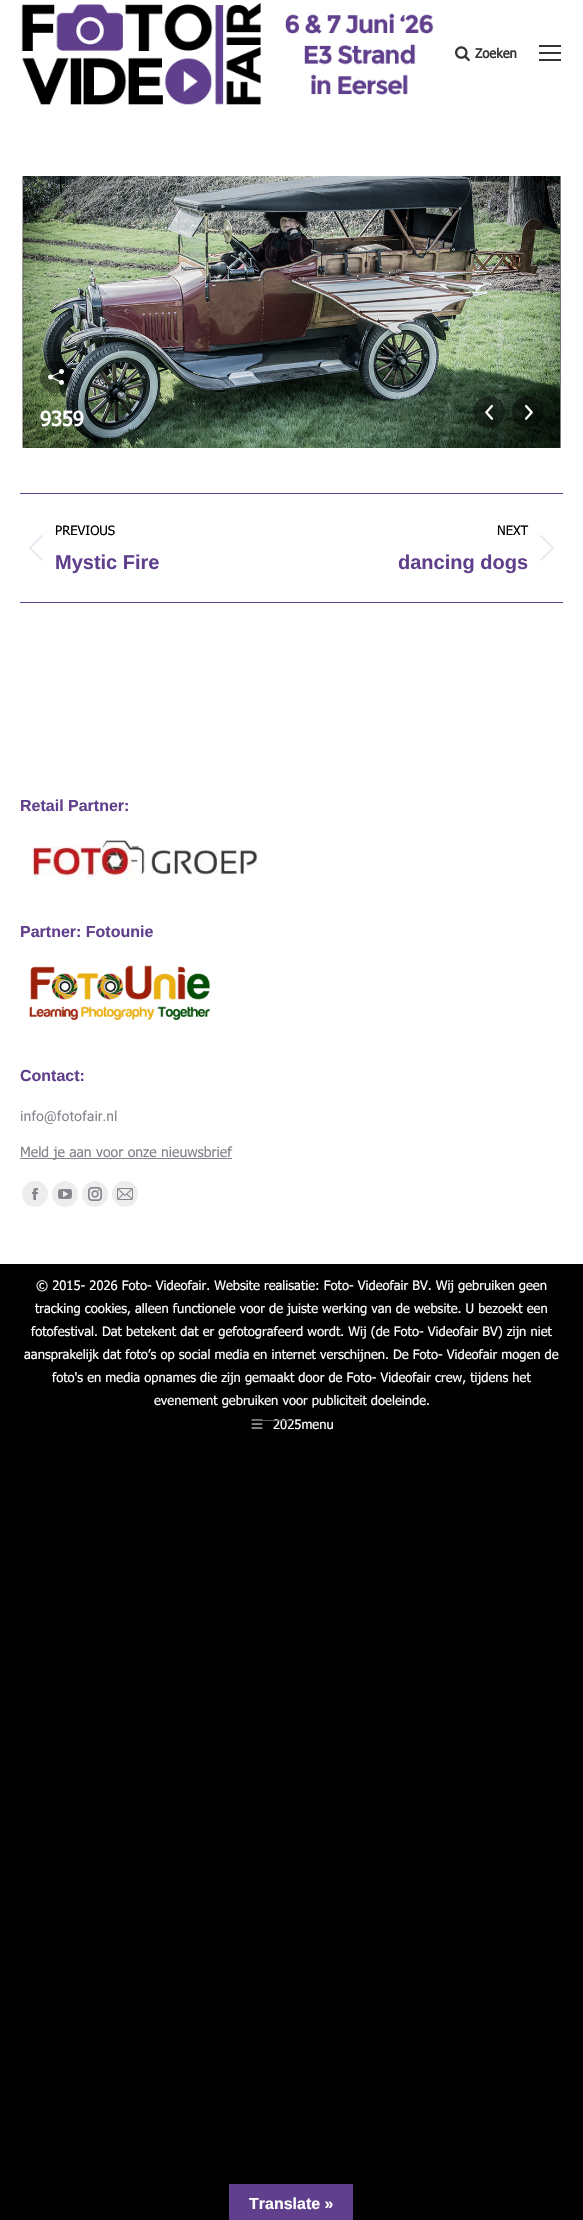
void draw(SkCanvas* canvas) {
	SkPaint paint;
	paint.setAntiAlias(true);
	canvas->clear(0xff000000);
	paint.setColor(0xffffffff);
	canvas->drawRect(SkRect::MakeXYWH(0, 0, 583, 1264), paint);
	canvas->drawImageRect(SkImages::DeferredFromEncodedData(SkData::MakeFromFileName("img1.png")), SkRect::MakeXYWH(21, 2, 413, 103), SkSamplingOptions());
	canvas->drawImageRect(SkImages::DeferredFromEncodedData(SkData::MakeFromFileName("img2.png")), SkRect::MakeXYWH(455, 46, 15, 16), SkSamplingOptions());
	SkFont f1(fontMgr->matchFamilyStyle("Tahoma", SkFontStyle::Bold()), 13);
	f1.setSubpixel(true);
	paint.setColor(0xff333333);
	canvas->drawString("Zoeken", 475, 58, f1, paint);
	canvas->drawRect(SkRect::MakeXYWH(539, 45, 22, 2), paint);
	canvas->drawRect(SkRect::MakeXYWH(539, 52, 22, 2), paint);
	canvas->drawRect(SkRect::MakeXYWH(539, 59, 22, 2), paint);
	canvas->drawImageRect(SkImages::DeferredFromEncodedData(SkData::MakeFromFileName("img3.png")), SkRect::MakeXYWH(20, 176, 543, 272), SkSamplingOptions());
	paint.setColor(0x66000000);
	canvas->drawCircle(56, 377, 16, paint);
	canvas->drawImageRect(SkImages::DeferredFromEncodedData(SkData::MakeFromFileName("img4.png")), SkRect::MakeXYWH(48, 369, 16, 16), SkSamplingOptions());
	SkFont f2(fontMgr->matchFamilyStyle("Tahoma", SkFontStyle::Bold()), 20);
	f2.setSubpixel(true);
	paint.setColor(0xffffffff);
	canvas->drawString("9359", 40, 426, f2, paint);
	paint.setColor(0x66000000);
	canvas->drawCircle(489, 412, 16, paint);
	canvas->drawImageRect(SkImages::DeferredFromEncodedData(SkData::MakeFromFileName("img5.png")), SkRect::MakeXYWH(485, 405, 8, 15), SkSamplingOptions());
	canvas->drawCircle(528, 412, 16, paint);
	canvas->drawImageRect(SkImages::DeferredFromEncodedData(SkData::MakeFromFileName("img6.png")), SkRect::MakeXYWH(525, 405, 8, 15), SkSamplingOptions());
	paint.setColor(0xff603f8c);
	canvas->drawRect(SkRect::MakeXYWH(20, 493, 543, 1), paint);
	canvas->drawRect(SkRect::MakeXYWH(20, 602, 543, 1), paint);
	SkFont f3(fontMgr->matchFamilyStyle("Tahoma", SkFontStyle::Normal()), 13);
	f3.setSubpixel(true);
	paint.setColor(0xff000000);
	canvas->drawString("PREVIOUS", 55, 535, f3, paint);
	canvas->drawImageRect(SkImages::DeferredFromEncodedData(SkData::MakeFromFileName("img7.png")), SkRect::MakeXYWH(29, 535, 14, 26), SkSamplingOptions());
	SkFont f4(fontMgr->matchFamilyStyle("Liberation Sans", SkFontStyle::Bold()), 20);
	f4.setSubpixel(true);
	paint.setColor(0xff603f8c);
	canvas->drawString("Mystic Fire", 55, 569, f4, paint);
	paint.setColor(0xff000000);
	canvas->drawString("NEXT", 497, 535, f3, paint);
	canvas->drawImageRect(SkImages::DeferredFromEncodedData(SkData::MakeFromFileName("img8.png")), SkRect::MakeXYWH(540, 535, 14, 26), SkSamplingOptions());
	paint.setColor(0xff603f8c);
	canvas->drawString("dancing dogs", 398, 569, f4, paint);
	SkFont f5(fontMgr->matchFamilyStyle("Liberation Sans", SkFontStyle::Bold()), 16);
	f5.setSubpixel(true);
	canvas->drawString("Retail Partner:", 20, 811, f5, paint);
	canvas->drawImageRect(SkImages::DeferredFromEncodedData(SkData::MakeFromFileName("img9.png")), SkRect::MakeXYWH(31, 840, 227, 41), SkSamplingOptions());
	canvas->drawString("Partner: Fotounie", 20, 937, f5, paint);
	canvas->drawImageRect(SkImages::DeferredFromEncodedData(SkData::MakeFromFileName("img10.png")), SkRect::MakeXYWH(29, 965, 181, 56), SkSamplingOptions());
	canvas->drawString("Contact:", 20, 1081, f5, paint);
	SkFont f6(fontMgr->matchFamilyStyle("Roboto", SkFontStyle::Normal()), 14);
	f6.setSubpixel(true);
	paint.setColor(0xff85868c);
	canvas->drawString("info@fotofair.nl", 20, 1121, f6, paint);
	canvas->drawRect(SkRect::MakeXYWH(20, 1158, 212, 1), paint);
	SkFont f7(fontMgr->matchFamilyStyle("Tahoma", SkFontStyle::Normal()), 14);
	f7.setSubpixel(true);
	canvas->drawString("Meld je aan voor onze nieuwsbrief", 20, 1157, f7, paint);
	paint.setColor(0xffededee);
	canvas->drawCircle(35, 1194, 13, paint);
	canvas->drawImageRect(SkImages::DeferredFromEncodedData(SkData::MakeFromFileName("img11.png")), SkRect::MakeXYWH(32, 1188, 6, 12), SkSamplingOptions());
	canvas->drawCircle(65, 1194, 13, paint);
	canvas->drawImageRect(SkImages::DeferredFromEncodedData(SkData::MakeFromFileName("img12.png")), SkRect::MakeXYWH(58, 1189, 14, 10), SkSamplingOptions());
	canvas->drawCircle(95, 1194, 13, paint);
	canvas->drawImageRect(SkImages::DeferredFromEncodedData(SkData::MakeFromFileName("img13.png")), SkRect::MakeXYWH(88, 1187, 14, 14), SkSamplingOptions());
	canvas->drawCircle(125, 1194, 13, paint);
	canvas->drawImageRect(SkImages::DeferredFromEncodedData(SkData::MakeFromFileName("img14.png")), SkRect::MakeXYWH(117, 1188, 16, 12), SkSamplingOptions());
	paint.setColor(0xffffffff);
	canvas->drawString("© 2015- 2026 Foto- Videofair. Website realisatie: Foto- Videofair BV. Wij gebruiken geen", 36, 1290, f3, paint);
	canvas->drawString("tracking cookies, alleen functionele voor de juiste werking van de website. U bezoekt een", 35, 1313, f3, paint);
	canvas->drawString("fotofestival. Dat betekent dat er gefotografeerd wordt. Wij (de Foto- Videofair BV) zijn niet", 31, 1336, f3, paint);
	canvas->drawString("aansprakelijk dat foto’s op social media en internet verschijnen. De Foto- Videofair mogen de", 24, 1359, f3, paint);
	canvas->drawString("foto's en media opnames die zijn gemaakt door de Foto- Videofair crew, tijdens het", 52, 1382, f3, paint);
	canvas->drawString("evenement gebruiken voor publiciteit doeleinde.", 154, 1405, f3, paint);
	canvas->drawImageRect(SkImages::DeferredFromEncodedData(SkData::MakeFromFileName("img15.png")), SkRect::MakeXYWH(251, 1419, 12, 10), SkSamplingOptions());
	canvas->drawString("2025menu", 273, 1429, f3, paint);
	SkFont f8(fontMgr->matchFamilyStyle("Liberation Sans", SkFontStyle::Normal()), 14);
	f8.setSubpixel(true);
	paint.setColor(0xff616161);
	canvas->drawString("———", 252, 1424, f8, paint);
	paint.setColor(0xff603f8c);
	canvas->drawRect(SkRect::MakeXYWH(229, 2184, 124, 36), paint);
	paint.setColor(0xffffffff);
	canvas->drawString("Translate »", 249, 2209, f5, paint);
}
